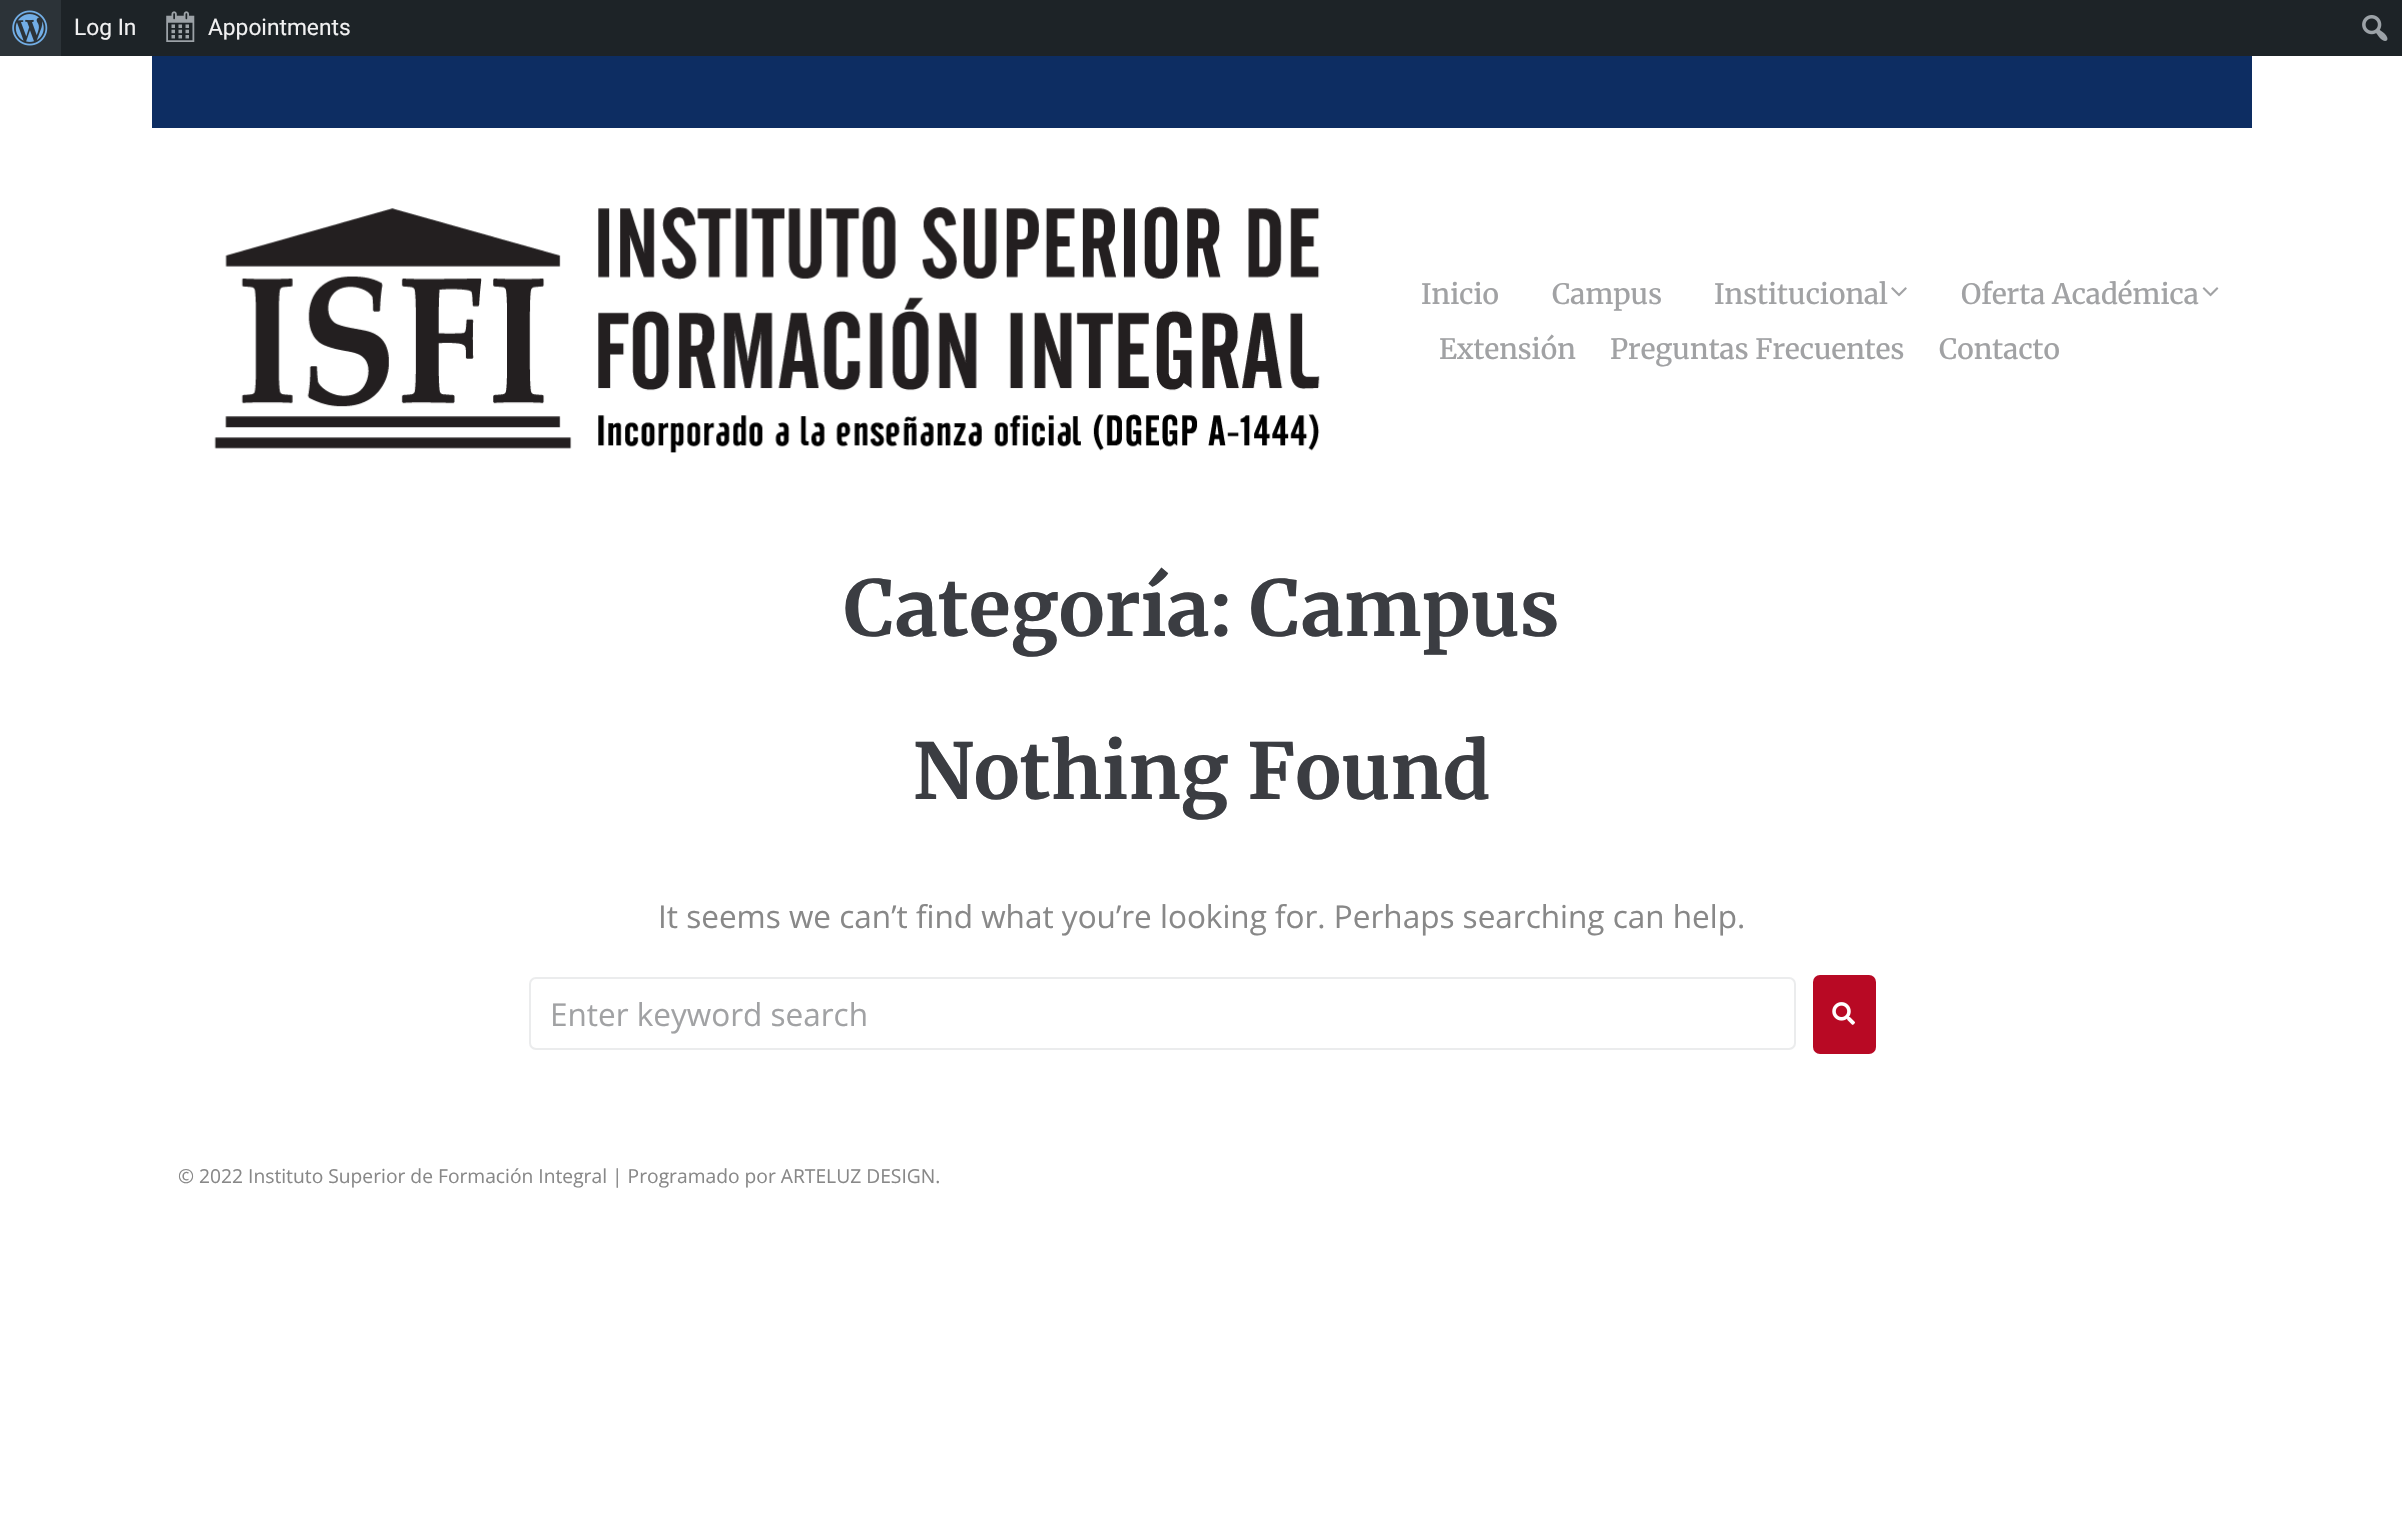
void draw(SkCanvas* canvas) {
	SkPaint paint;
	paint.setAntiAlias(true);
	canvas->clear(0xffffffff);
	paint.setColor(0xff1d2327);
	canvas->drawRect(SkRect::MakeXYWH(61, 0, 2341, 56), paint);
	paint.setColor(0xff2c3338);
	canvas->drawRect(SkRect::MakeXYWH(0, 0, 61, 56), paint);
	canvas->drawImageRect(SkImages::DeferredFromEncodedData(SkData::MakeFromFileName("img1.png")), SkRect::MakeXYWH(12, 10, 36, 36), SkSamplingOptions());
	SkFont f1(fontMgr->matchFamilyStyle("Roboto", SkFontStyle::Normal()), 22.75);
	f1.setSubpixel(true);
	paint.setColor(0xfff0f0f1);
	canvas->drawString("Log In", 74, 35, f1, paint);
	canvas->drawImageRect(SkImages::DeferredFromEncodedData(SkData::MakeFromFileName("img2.png")), SkRect::MakeXYWH(166, 11, 29, 31), SkSamplingOptions());
	canvas->drawString("Appointments", 208, 35, f1, paint);
	canvas->drawImageRect(SkImages::DeferredFromEncodedData(SkData::MakeFromFileName("img3.png")), SkRect::MakeXYWH(2362, 15, 26, 26), SkSamplingOptions());
	paint.setColor(0xff0d2d62);
	canvas->drawRect(SkRect::MakeXYWH(152, 56, 2100, 72), paint);
	canvas->drawImageRect(SkImages::DeferredFromEncodedData(SkData::MakeFromFileName("img4.png")), SkRect::MakeXYWH(214, 206, 1106, 247), SkSamplingOptions());
	SkFont f2(fontMgr->matchFamilyStyle("Merriweather", SkFontStyle(500, SkFontStyle::kNormal_Width, SkFontStyle::kUpright_Slant)), 28);
	f2.setSubpixel(true);
	paint.setColor(0xffa1a2a4);
	canvas->drawString("Inicio", 1421, 304, f2, paint);
	canvas->drawString("Campus", 1552, 304, f2, paint);
	canvas->drawString("Institucional", 1714, 304, f2, paint);
	canvas->drawImageRect(SkImages::DeferredFromEncodedData(SkData::MakeFromFileName("img5.png")), SkRect::MakeXYWH(1891, 287, 16, 10), SkSamplingOptions());
	canvas->drawString("Oferta Académica", 1961, 304, f2, paint);
	canvas->drawImageRect(SkImages::DeferredFromEncodedData(SkData::MakeFromFileName("img6.png")), SkRect::MakeXYWH(2202, 287, 17, 10), SkSamplingOptions());
	canvas->drawString("Extensión", 1439, 359, f2, paint);
	canvas->drawString("Preguntas Frecuentes", 1610, 359, f2, paint);
	canvas->drawString("Contacto", 1939, 359, f2, paint);
	SkFont f3(fontMgr->matchFamilyStyle("Merriweather", SkFontStyle::Bold()), 77);
	f3.setSubpixel(true);
	paint.setColor(0xff3b3d42);
	canvas->drawString("Categoría: Campus", 844, 636, f3, paint);
	canvas->drawString("Nothing Found", 913, 799, f3, paint);
	SkFont f4(fontMgr->matchFamilyStyle("Open Sans", SkFontStyle::Normal()), 31.5);
	f4.setSubpixel(true);
	paint.setColor(0xff888888);
	canvas->drawString("It seems we can’t find what you’re looking for. Perhaps searching can help.", 658, 928, f4, paint);
	paint.setStroke(true);
	paint.setStrokeWidth(2);
	paint.setColor(0xffebeced);
	canvas->drawRoundRect(SkRect::MakeXYWH(530, 978, 1265, 71), 6, 6, paint);
	paint.setStroke(false);
	paint.setColor(0xffa1a2a4);
	canvas->drawString("Enter keyword search", 550, 1026, f4, paint);
	paint.setColor(0xffb80924);
	canvas->drawRoundRect(SkRect::MakeXYWH(1813, 975, 63, 79), 7, 7, paint);
	canvas->drawImageRect(SkImages::DeferredFromEncodedData(SkData::MakeFromFileName("img7.png")), SkRect::MakeXYWH(1832, 1002, 23, 23), SkSamplingOptions());
	SkFont f5(fontMgr->matchFamilyStyle("Open Sans", SkFontStyle::Normal()), 19.25);
	f5.setSubpixel(true);
	paint.setColor(0xff888888);
	canvas->drawString("© 2022 Instituto Superior de Formación Integral | Programado por ARTELUZ DESIGN.", 178, 1183, f5, paint);
}
